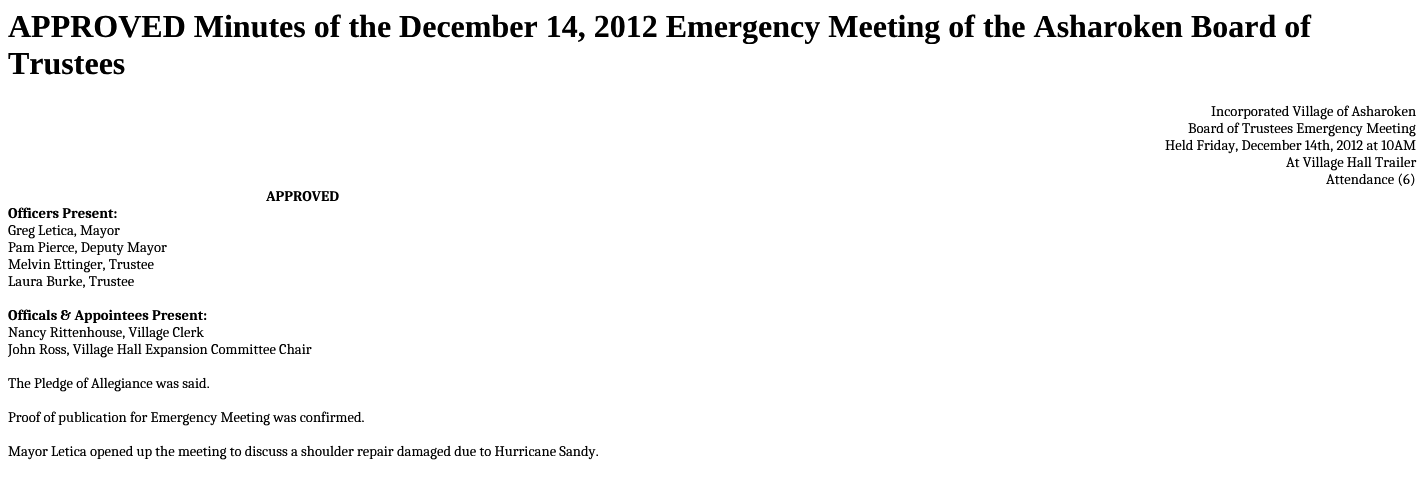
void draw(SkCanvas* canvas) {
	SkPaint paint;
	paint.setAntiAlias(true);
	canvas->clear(0xffffffff);
	SkFont f1(fontMgr->matchFamilyStyle("Liberation Serif", SkFontStyle::Bold()), 32);
	f1.setSubpixel(true);
	paint.setColor(0xff000000);
	canvas->drawString("APPROVED Minutes of the December 14, 2012 Emergency Meeting of the Asharoken Board of", 8, 37, f1, paint);
	canvas->drawString("Trustees", 8, 74, f1, paint);
	SkFont f2(fontMgr->matchFamilyStyle("Caladea", SkFontStyle::Normal()), 14.65);
	f2.setSubpixel(true);
	canvas->drawString("Incorporated Village of Asharoken", 1211, 116, f2, paint);
	canvas->drawString("Board of Trustees Emergency Meeting", 1188, 133, f2, paint);
	canvas->drawString("Held Friday, December 14th, 2012 at 10AM", 1165, 150, f2, paint);
	canvas->drawString("At Village Hall Trailer", 1286, 167, f2, paint);
	canvas->drawString("Attendance (6)", 1326, 184, f2, paint);
	SkFont f3(fontMgr->matchFamilyStyle("Caladea", SkFontStyle::Bold()), 14.65);
	f3.setSubpixel(true);
	canvas->drawString("APPROVED", 266, 201, f3, paint);
	canvas->drawString("Officers Present:", 8, 218, f3, paint);
	canvas->drawString("Greg Letica, Mayor", 8, 235, f2, paint);
	canvas->drawString("Pam Pierce, Deputy Mayor", 8, 252, f2, paint);
	canvas->drawString("Melvin Ettinger, Trustee", 8, 269, f2, paint);
	canvas->drawString("Laura Burke, Trustee", 8, 286, f2, paint);
	canvas->drawString("Officals & Appointees Present:", 8, 320, f3, paint);
	canvas->drawString("Nancy Rittenhouse, Village Clerk", 8, 337, f2, paint);
	canvas->drawString("John Ross, Village Hall Expansion Committee Chair", 8, 354, f2, paint);
	canvas->drawString("The Pledge of Allegiance was said.", 8, 388, f2, paint);
	canvas->drawString("Proof of publication for Emergency Meeting was confirmed.", 8, 422, f2, paint);
	canvas->drawString("Mayor Letica opened up the meeting to discuss a shoulder repair damaged due to Hurricane Sandy.", 8, 456, f2, paint);
}
